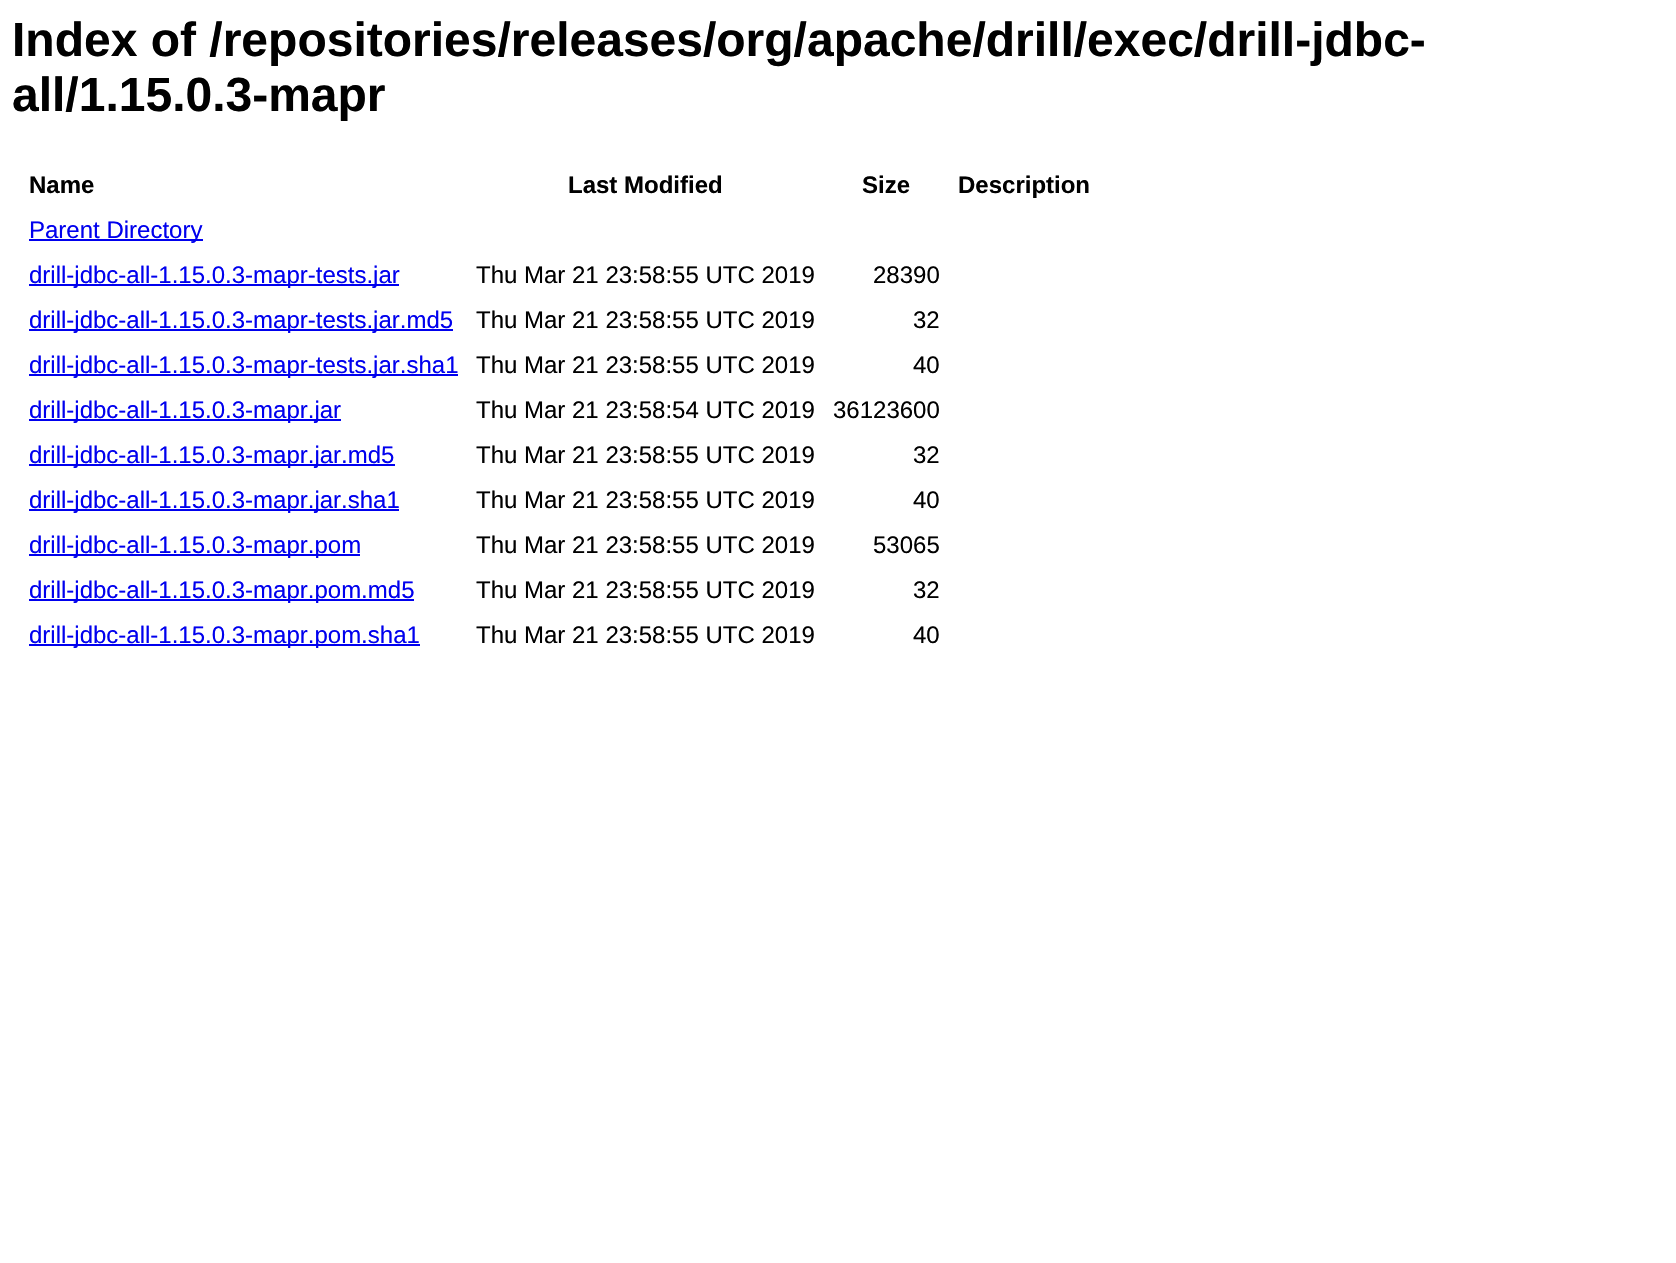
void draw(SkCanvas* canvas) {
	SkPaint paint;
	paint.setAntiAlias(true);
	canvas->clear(0xffffffff);
	SkFont f1(fontMgr->matchFamilyStyle("Liberation Sans", SkFontStyle::Bold()), 48);
	f1.setSubpixel(true);
	paint.setColor(0xff000000);
	canvas->drawString("Index of /repositories/releases/org/apache/drill/exec/drill-jdbc-", 12, 56, f1, paint);
	canvas->drawString("all/1.15.0.3-mapr", 12, 111, f1, paint);
	SkFont f2(fontMgr->matchFamilyStyle("Liberation Sans", SkFontStyle::Bold()), 24);
	f2.setSubpixel(true);
	canvas->drawString("Name", 29, 193, f2, paint);
	canvas->drawString("Last Modified", 568, 193, f2, paint);
	canvas->drawString("Size", 862, 193, f2, paint);
	canvas->drawString("Description", 958, 193, f2, paint);
	paint.setColor(0xff0000ee);
	canvas->drawRect(SkRect::MakeXYWH(29, 239, 174, 2), paint);
	SkFont f3(fontMgr->matchFamilyStyle("Liberation Sans", SkFontStyle::Normal()), 24);
	f3.setSubpixel(true);
	canvas->drawString("Parent Directory", 29, 238, f3, paint);
	canvas->drawRect(SkRect::MakeXYWH(29, 284, 370, 2), paint);
	canvas->drawString("drill-jdbc-all-1.15.0.3-mapr-tests.jar", 29, 283, f3, paint);
	paint.setColor(0xff000000);
	canvas->drawString("Thu Mar 21 23:58:55 UTC 2019", 476, 283, f3, paint);
	canvas->drawString("28390", 873, 283, f3, paint);
	paint.setColor(0xff0000ee);
	canvas->drawRect(SkRect::MakeXYWH(29, 329, 424, 2), paint);
	canvas->drawString("drill-jdbc-all-1.15.0.3-mapr-tests.jar.md5", 29, 328, f3, paint);
	paint.setColor(0xff000000);
	canvas->drawString("Thu Mar 21 23:58:55 UTC 2019", 476, 328, f3, paint);
	canvas->drawString("32", 913, 328, f3, paint);
	paint.setColor(0xff0000ee);
	canvas->drawRect(SkRect::MakeXYWH(29, 374, 429, 2), paint);
	canvas->drawString("drill-jdbc-all-1.15.0.3-mapr-tests.jar.sha1", 29, 373, f3, paint);
	paint.setColor(0xff000000);
	canvas->drawString("Thu Mar 21 23:58:55 UTC 2019", 476, 373, f3, paint);
	canvas->drawString("40", 913, 373, f3, paint);
	paint.setColor(0xff0000ee);
	canvas->drawRect(SkRect::MakeXYWH(29, 419, 312, 2), paint);
	canvas->drawString("drill-jdbc-all-1.15.0.3-mapr.jar", 29, 418, f3, paint);
	paint.setColor(0xff000000);
	canvas->drawString("Thu Mar 21 23:58:54 UTC 2019", 476, 418, f3, paint);
	canvas->drawString("36123600", 833, 418, f3, paint);
	paint.setColor(0xff0000ee);
	canvas->drawRect(SkRect::MakeXYWH(29, 464, 366, 2), paint);
	canvas->drawString("drill-jdbc-all-1.15.0.3-mapr.jar.md5", 29, 463, f3, paint);
	paint.setColor(0xff000000);
	canvas->drawString("Thu Mar 21 23:58:55 UTC 2019", 476, 463, f3, paint);
	canvas->drawString("32", 913, 463, f3, paint);
	paint.setColor(0xff0000ee);
	canvas->drawRect(SkRect::MakeXYWH(29, 509, 370, 2), paint);
	canvas->drawString("drill-jdbc-all-1.15.0.3-mapr.jar.sha1", 29, 508, f3, paint);
	paint.setColor(0xff000000);
	canvas->drawString("Thu Mar 21 23:58:55 UTC 2019", 476, 508, f3, paint);
	canvas->drawString("40", 913, 508, f3, paint);
	paint.setColor(0xff0000ee);
	canvas->drawRect(SkRect::MakeXYWH(29, 554, 331, 2), paint);
	canvas->drawString("drill-jdbc-all-1.15.0.3-mapr.pom", 29, 553, f3, paint);
	paint.setColor(0xff000000);
	canvas->drawString("Thu Mar 21 23:58:55 UTC 2019", 476, 553, f3, paint);
	canvas->drawString("53065", 873, 553, f3, paint);
	paint.setColor(0xff0000ee);
	canvas->drawRect(SkRect::MakeXYWH(29, 599, 385, 2), paint);
	canvas->drawString("drill-jdbc-all-1.15.0.3-mapr.pom.md5", 29, 598, f3, paint);
	paint.setColor(0xff000000);
	canvas->drawString("Thu Mar 21 23:58:55 UTC 2019", 476, 598, f3, paint);
	canvas->drawString("32", 913, 598, f3, paint);
	paint.setColor(0xff0000ee);
	canvas->drawRect(SkRect::MakeXYWH(29, 644, 391, 2), paint);
	canvas->drawString("drill-jdbc-all-1.15.0.3-mapr.pom.sha1", 29, 643, f3, paint);
	paint.setColor(0xff000000);
	canvas->drawString("Thu Mar 21 23:58:55 UTC 2019", 476, 643, f3, paint);
	canvas->drawString("40", 913, 643, f3, paint);
}
